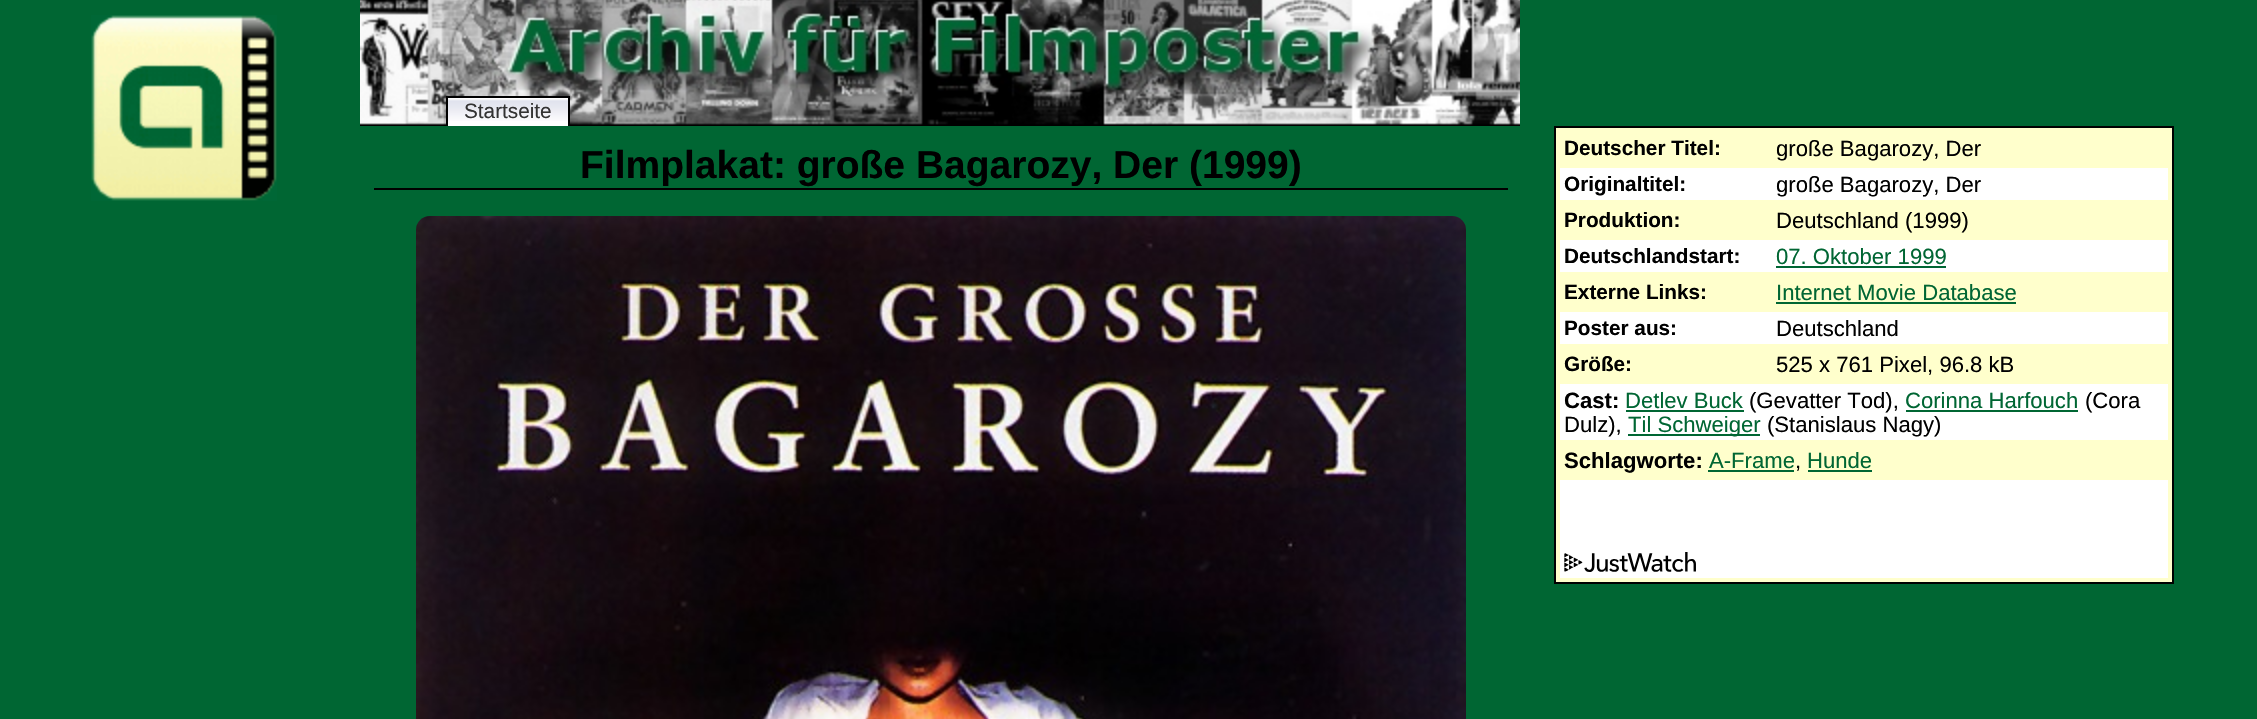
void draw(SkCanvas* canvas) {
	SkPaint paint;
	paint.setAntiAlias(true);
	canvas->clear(0xff006633);
	canvas->drawImageRect(SkImages::DeferredFromEncodedData(SkData::MakeFromFileName("img1.png")), SkRect::MakeXYWH(91, 15, 186, 186), SkSamplingOptions());
	paint.setColor(0xff000000);
	canvas->drawRect(SkRect::MakeXYWH(360, 125, 1160, 1), paint);
	canvas->drawImageRect(SkImages::DeferredFromEncodedData(SkData::MakeFromFileName("img2.png")), SkRect::MakeXYWH(360, 0, 1160, 125), SkSamplingOptions());
	paint.setColor(0xffffffff);
	canvas->drawRect(SkRect::MakeXYWH(448, 98, 120, 28), paint);
	canvas->drawImageRect(SkImages::DeferredFromEncodedData(SkData::MakeFromFileName("img3.png")), SkRect::MakeXYWH(448, 99, 120, 22), SkSamplingOptions());
	paint.setColor(0xff000000);
	canvas->drawRect(SkRect::MakeXYWH(446, 96, 124, 2), paint);
	canvas->drawRect(SkRect::MakeXYWH(568, 96, 2, 30), paint);
	canvas->drawRect(SkRect::MakeXYWH(446, 96, 2, 30), paint);
	SkFont f1(fontMgr->matchFamilyStyle("Liberation Sans", SkFontStyle::Normal()), 20.75);
	f1.setSubpixel(true);
	paint.setColor(0xff333333);
	canvas->drawString("Startseite", 464, 118, f1, paint);
	paint.setColor(0xff000000);
	canvas->drawRect(SkRect::MakeXYWH(374, 188, 1134, 2), paint);
	SkFont f2(fontMgr->matchFamilyStyle("Liberation Sans", SkFontStyle::Bold()), 39);
	f2.setSubpixel(true);
	canvas->drawString("Filmplakat: große Bagarozy, Der (1999)", 580, 178, f2, paint);
	paint.setColor(0xffffffcc);
	canvas->drawRect(SkRect::MakeXYWH(1555, 127, 618, 456), paint);
	paint.setStroke(true);
	paint.setStrokeWidth(2);
	paint.setColor(0xff000000);
	canvas->drawRect(SkRect::MakeXYWH(1555, 127, 618, 456), paint);
	SkFont f3(fontMgr->matchFamilyStyle("Liberation Sans", SkFontStyle::Bold()), 20.75);
	f3.setSubpixel(true);
	paint.setStroke(false);
	canvas->drawString("Deutscher Titel:", 1564, 155, f3, paint);
	SkFont f4(fontMgr->matchFamilyStyle("Liberation Sans", SkFontStyle::Normal()), 22.1);
	f4.setSubpixel(true);
	canvas->drawString("große Bagarozy, Der", 1776, 156, f4, paint);
	paint.setColor(0xffffffff);
	canvas->drawRect(SkRect::MakeXYWH(1560, 168, 608, 32), paint);
	paint.setColor(0xff000000);
	canvas->drawString("Originaltitel:", 1564, 191, f3, paint);
	canvas->drawString("große Bagarozy, Der", 1776, 192, f4, paint);
	canvas->drawString("Produktion:", 1564, 227, f3, paint);
	canvas->drawString("Deutschland (1999)", 1776, 228, f4, paint);
	paint.setColor(0xffffffff);
	canvas->drawRect(SkRect::MakeXYWH(1560, 240, 608, 32), paint);
	paint.setColor(0xff000000);
	canvas->drawString("Deutschlandstart:", 1564, 263, f3, paint);
	paint.setColor(0xff006633);
	canvas->drawString("07. Oktober 1999", 1776, 264, f4, paint);
	canvas->drawRect(SkRect::MakeXYWH(1776, 266, 170, 2), paint);
	paint.setColor(0xff000000);
	canvas->drawString("Externe Links:", 1564, 299, f3, paint);
	paint.setColor(0xff006633);
	canvas->drawString("Internet Movie Database", 1776, 300, f4, paint);
	canvas->drawRect(SkRect::MakeXYWH(1776, 302, 240, 2), paint);
	paint.setColor(0xffffffff);
	canvas->drawRect(SkRect::MakeXYWH(1560, 312, 608, 32), paint);
	paint.setColor(0xff000000);
	canvas->drawString("Poster aus:", 1564, 335, f3, paint);
	canvas->drawString("Deutschland", 1776, 336, f4, paint);
	canvas->drawString("Größe:", 1564, 371, f3, paint);
	canvas->drawString("525 x 761 Pixel, 96.8 kB", 1776, 372, f4, paint);
	paint.setColor(0xffffffff);
	canvas->drawRect(SkRect::MakeXYWH(1560, 384, 608, 56), paint);
	SkFont f5(fontMgr->matchFamilyStyle("Liberation Sans", SkFontStyle::Bold()), 22.1);
	f5.setSubpixel(true);
	paint.setColor(0xff000000);
	canvas->drawString("Cast:", 1564, 408, f5, paint);
	paint.setColor(0xff006633);
	canvas->drawString("Detlev Buck", 1625, 408, f4, paint);
	canvas->drawRect(SkRect::MakeXYWH(1626, 410, 118, 2), paint);
	paint.setColor(0xff000000);
	canvas->drawString("(Gevatter Tod),", 1749, 408, f4, paint);
	paint.setColor(0xff006633);
	canvas->drawString("Corinna Harfouch", 1905, 408, f4, paint);
	canvas->drawRect(SkRect::MakeXYWH(1906, 410, 172, 2), paint);
	paint.setColor(0xff000000);
	canvas->drawString("(Cora", 2085, 408, f4, paint);
	canvas->drawString("Dulz),", 1564, 432, f4, paint);
	paint.setColor(0xff006633);
	canvas->drawRect(SkRect::MakeXYWH(1628, 434, 132, 2), paint);
	canvas->drawString("Til Schweiger", 1628, 432, f4, paint);
	paint.setColor(0xff000000);
	canvas->drawString("(Stanislaus Nagy)", 1767, 432, f4, paint);
	canvas->drawString("Schlagworte:", 1564, 468, f5, paint);
	paint.setColor(0xff006633);
	canvas->drawString("A-Frame", 1709, 468, f4, paint);
	canvas->drawRect(SkRect::MakeXYWH(1708, 470, 86, 2), paint);
	paint.setColor(0xff000000);
	canvas->drawString(",", 1795, 468, f4, paint);
	paint.setColor(0xff006633);
	canvas->drawString("Hunde", 1807, 468, f4, paint);
	canvas->drawRect(SkRect::MakeXYWH(1808, 470, 64, 2), paint);
	paint.setColor(0xffffffff);
	canvas->drawRect(SkRect::MakeXYWH(1560, 480, 608, 98), paint);
	canvas->drawImageRect(SkImages::DeferredFromEncodedData(SkData::MakeFromFileName("img4.png")), SkRect::MakeXYWH(1564, 552, 132, 20), SkSamplingOptions());
	canvas->drawImageRect(SkImages::DeferredFromEncodedData(SkData::MakeFromFileName("img5.png")), SkRect::MakeXYWH(416, 216, 1050, 503), SkSamplingOptions());
}
